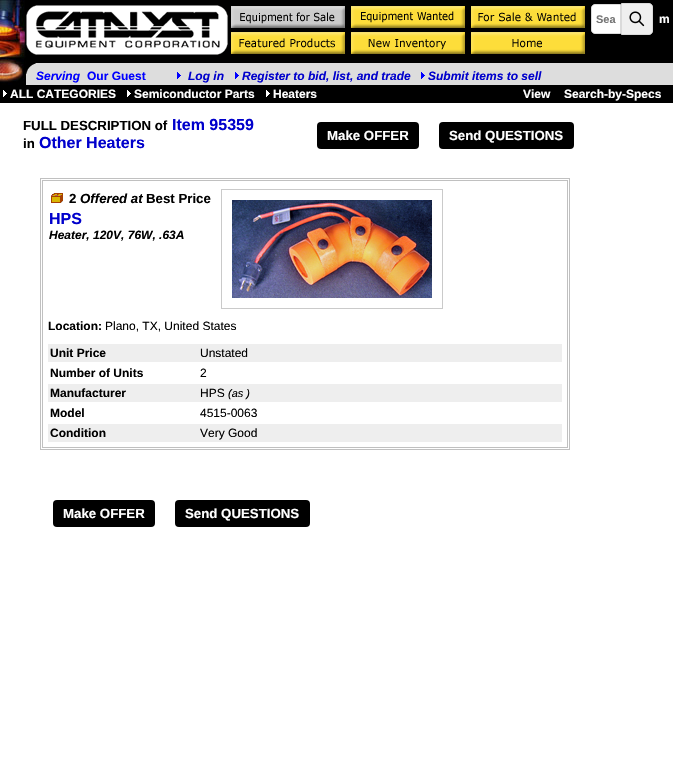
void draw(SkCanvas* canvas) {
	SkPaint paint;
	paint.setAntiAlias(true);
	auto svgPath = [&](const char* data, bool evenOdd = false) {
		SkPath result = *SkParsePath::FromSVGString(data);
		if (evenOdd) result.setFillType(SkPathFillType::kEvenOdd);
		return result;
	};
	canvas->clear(0xffffffff);
	paint.setColor(0xff000000);
	canvas->drawRect(SkRect::MakeXYWH(26, 0, 647, 63), paint);
	canvas->drawImageRect(SkImages::DeferredFromEncodedData(SkData::MakeFromFileName("img1.png")), SkRect::MakeXYWH(0, 0, 26, 85), SkSamplingOptions());
	canvas->drawImageRect(SkImages::DeferredFromEncodedData(SkData::MakeFromFileName("img2.png")), SkRect::MakeXYWH(26, 5, 202, 50), SkSamplingOptions());
	canvas->drawImageRect(SkImages::DeferredFromEncodedData(SkData::MakeFromFileName("img3.png")), SkRect::MakeXYWH(231, 6, 114, 22), SkSamplingOptions());
	canvas->drawImageRect(SkImages::DeferredFromEncodedData(SkData::MakeFromFileName("img4.png")), SkRect::MakeXYWH(351, 6, 114, 22), SkSamplingOptions());
	canvas->drawImageRect(SkImages::DeferredFromEncodedData(SkData::MakeFromFileName("img5.png")), SkRect::MakeXYWH(471, 6, 114, 22), SkSamplingOptions());
	canvas->drawImageRect(SkImages::DeferredFromEncodedData(SkData::MakeFromFileName("img6.png")), SkRect::MakeXYWH(231, 32, 114, 22), SkSamplingOptions());
	canvas->drawImageRect(SkImages::DeferredFromEncodedData(SkData::MakeFromFileName("img7.png")), SkRect::MakeXYWH(351, 32, 114, 22), SkSamplingOptions());
	canvas->drawImageRect(SkImages::DeferredFromEncodedData(SkData::MakeFromFileName("img8.png")), SkRect::MakeXYWH(471, 32, 114, 22), SkSamplingOptions());
	paint.setColor(0xffffffff);
	canvas->drawPath(svgPath("M595 4.5H620.5V33.5H595C593 33.5 591.5 32 591.5 30V8C591.5 6 593 4.5 595 4.5Z"), paint);
	paint.setStroke(true);
	paint.setStrokeWidth(1);
	paint.setColor(0xffdadada);
	canvas->drawPath(svgPath("M595 4.5H620.5V33.5H595C593 33.5 591.5 32 591.5 30V8C591.5 6 593 4.5 595 4.5Z"), paint);
	SkFont f1(fontMgr->matchFamilyStyle("Liberation Sans", SkFontStyle::Bold()), 11);
	f1.setSubpixel(true);
	paint.setStroke(false);
	paint.setColor(0xff757575);
	canvas->drawString("Sea", 596, 23, f1, paint);
	paint.setColor(0xffefefef);
	canvas->drawPath(svgPath("M621.5 3.5H649C651 3.5 652.5 5 652.5 7V31C652.5 33 651 34.5 649 34.5H621.5Z"), paint);
	paint.setStroke(true);
	paint.setColor(0xffdadada);
	canvas->drawPath(svgPath("M621.5 3.5H649C651 3.5 652.5 5 652.5 7V31C652.5 33 651 34.5 649 34.5H621.5Z"), paint);
	canvas->drawImageRect(SkImages::DeferredFromEncodedData(SkData::MakeFromFileName("img9.png")), SkRect::MakeXYWH(629, 11, 16, 16), SkSamplingOptions());
	SkFont f2(fontMgr->matchFamilyStyle("Liberation Sans", SkFontStyle::Bold()), 12);
	f2.setSubpixel(true);
	paint.setStroke(false);
	paint.setColor(0xffffffff);
	canvas->drawString("m", 659, 23, f2, paint);
	paint.setColor(0xffdddddd);
	canvas->drawRect(SkRect::MakeXYWH(26, 63, 647, 22), paint);
	canvas->drawImageRect(SkImages::DeferredFromEncodedData(SkData::MakeFromFileName("img10.png")), SkRect::MakeXYWH(26, 63, 10, 11), SkSamplingOptions());
	SkFont f3(fontMgr->matchFamilyStyle("Liberation Sans", SkFontStyle::BoldItalic()), 12);
	f3.setSubpixel(true);
	paint.setColor(0xff0000ff);
	canvas->drawString("Serving", 36, 80, f3, paint);
	canvas->drawString("Our Guest", 87, 80, f2, paint);
	canvas->drawImageRect(SkImages::DeferredFromEncodedData(SkData::MakeFromFileName("img11.png")), SkRect::MakeXYWH(177, 72, 4, 7), SkSamplingOptions());
	paint.setColor(0xff0000cc);
	canvas->drawString("Log in", 188, 80, f3, paint);
	canvas->drawImageRect(SkImages::DeferredFromEncodedData(SkData::MakeFromFileName("img11.png")), SkRect::MakeXYWH(235, 72, 4, 7), SkSamplingOptions());
	canvas->drawString("Register to bid, list, and trade", 242, 80, f3, paint);
	canvas->drawImageRect(SkImages::DeferredFromEncodedData(SkData::MakeFromFileName("img11.png")), SkRect::MakeXYWH(421, 72, 4, 7), SkSamplingOptions());
	canvas->drawString("Submit items to sell", 428, 80, f3, paint);
	paint.setColor(0xff000000);
	canvas->drawRect(SkRect::MakeXYWH(0, 85, 673, 18), paint);
	canvas->drawImageRect(SkImages::DeferredFromEncodedData(SkData::MakeFromFileName("img12.png")), SkRect::MakeXYWH(3, 90, 4, 7), SkSamplingOptions());
	paint.setColor(0xffffffff);
	canvas->drawString("ALL CATEGORIES", 10, 98, f2, paint);
	canvas->drawImageRect(SkImages::DeferredFromEncodedData(SkData::MakeFromFileName("img12.png")), SkRect::MakeXYWH(127, 90, 4, 7), SkSamplingOptions());
	canvas->drawString("Semiconductor Parts", 134, 98, f2, paint);
	canvas->drawImageRect(SkImages::DeferredFromEncodedData(SkData::MakeFromFileName("img12.png")), SkRect::MakeXYWH(266, 90, 4, 7), SkSamplingOptions());
	canvas->drawString("Heaters", 273, 98, f2, paint);
	canvas->drawString("View", 523, 98, f2, paint);
	canvas->drawString("Search-by-Specs", 564, 98, f2, paint);
	SkFont f4(fontMgr->matchFamilyStyle("Liberation Sans", SkFontStyle::Bold()), 13.25);
	f4.setSubpixel(true);
	paint.setColor(0xff000000);
	canvas->drawString("FULL DESCRIPTION of", 23, 130, f4, paint);
	SkFont f5(fontMgr->matchFamilyStyle("Liberation Sans", SkFontStyle::Bold()), 16);
	f5.setSubpixel(true);
	paint.setColor(0xff0000cc);
	canvas->drawString("Item 95359", 172, 130, f5, paint);
	paint.setColor(0xff000000);
	canvas->drawString("in", 23, 148, f4, paint);
	paint.setColor(0xff0000cc);
	canvas->drawString("Other Heaters", 39, 148, f5, paint);
	paint.setColor(0xff000000);
	canvas->drawRoundRect(SkRect::MakeXYWH(317, 122, 102, 27), 4, 4, paint);
	paint.setColor(0xffffffff);
	canvas->drawString("Make OFFER", 327, 140, f4, paint);
	paint.setColor(0xff000000);
	canvas->drawRoundRect(SkRect::MakeXYWH(439, 122, 135, 27), 4, 4, paint);
	paint.setColor(0xffffffff);
	canvas->drawString("Send QUESTIONS", 449, 140, f4, paint);
	paint.setStroke(true);
	paint.setColor(0xffc0c0c0);
	canvas->drawRect(SkRect::MakeXYWH(40.5, 178.5, 529, 271), paint);
	canvas->drawRect(SkRect::MakeXYWH(42.5, 180.5, 525, 267), paint);
	canvas->drawImageRect(SkImages::DeferredFromEncodedData(SkData::MakeFromFileName("img13.png")), SkRect::MakeXYWH(51, 193, 12, 10), SkSamplingOptions());
	paint.setStroke(false);
	paint.setColor(0xff000000);
	canvas->drawString("2", 69, 203, f4, paint);
	SkFont f6(fontMgr->matchFamilyStyle("Liberation Sans", SkFontStyle::BoldItalic()), 13.25);
	f6.setSubpixel(true);
	canvas->drawString("Offered at", 80, 203, f6, paint);
	canvas->drawString("Best Price", 146, 203, f4, paint);
	paint.setColor(0xff0000cc);
	canvas->drawString("HPS", 49, 224, f5, paint);
	paint.setColor(0xff000000);
	canvas->drawString("Heater, 120V, 76W, .63A", 49, 239, f3, paint);
	paint.setStroke(true);
	paint.setColor(0xffcacaca);
	canvas->drawRect(SkRect::MakeXYWH(221.5, 189.5, 221, 119), paint);
	canvas->drawImageRect(SkImages::DeferredFromEncodedData(SkData::MakeFromFileName("img14.png")), SkRect::MakeXYWH(232, 200, 200, 98), SkSamplingOptions());
	paint.setStroke(false);
	paint.setColor(0xff000000);
	canvas->drawString("Location:", 48, 330, f2, paint);
	SkFont f7(fontMgr->matchFamilyStyle("Liberation Sans", SkFontStyle::Normal()), 12);
	f7.setSubpixel(true);
	canvas->drawString("Plano, TX, United States", 105, 330, f7, paint);
	paint.setColor(0xffeeeeee);
	canvas->drawRect(SkRect::MakeXYWH(48, 344, 514, 18), paint);
	paint.setColor(0xff000000);
	canvas->drawString("Unit Price", 50, 357, f2, paint);
	canvas->drawString("Unstated", 200, 357, f7, paint);
	canvas->drawString("Number of Units", 50, 377, f2, paint);
	canvas->drawString("2", 200, 377, f7, paint);
	paint.setColor(0xffeeeeee);
	canvas->drawRect(SkRect::MakeXYWH(48, 384, 514, 18), paint);
	paint.setColor(0xff000000);
	canvas->drawString("Manufacturer", 50, 397, f2, paint);
	canvas->drawString("HPS", 200, 397, f7, paint);
	SkFont f8(fontMgr->matchFamilyStyle("Liberation Sans", SkFontStyle::Italic()), 11);
	f8.setSubpixel(true);
	canvas->drawString("(as )", 228, 397, f8, paint);
	canvas->drawString("Model", 50, 417, f2, paint);
	canvas->drawString("4515-0063", 200, 417, f7, paint);
	paint.setColor(0xffeeeeee);
	canvas->drawRect(SkRect::MakeXYWH(48, 424, 514, 18), paint);
	paint.setColor(0xff000000);
	canvas->drawString("Condition", 50, 437, f2, paint);
	canvas->drawString("Very Good", 200, 437, f7, paint);
	canvas->drawRoundRect(SkRect::MakeXYWH(53, 500, 102, 27), 4, 4, paint);
	paint.setColor(0xffffffff);
	canvas->drawString("Make OFFER", 63, 518, f4, paint);
	paint.setColor(0xff000000);
	canvas->drawRoundRect(SkRect::MakeXYWH(175, 500, 135, 27), 4, 4, paint);
	paint.setColor(0xffffffff);
	canvas->drawString("Send QUESTIONS", 185, 518, f4, paint);
}
